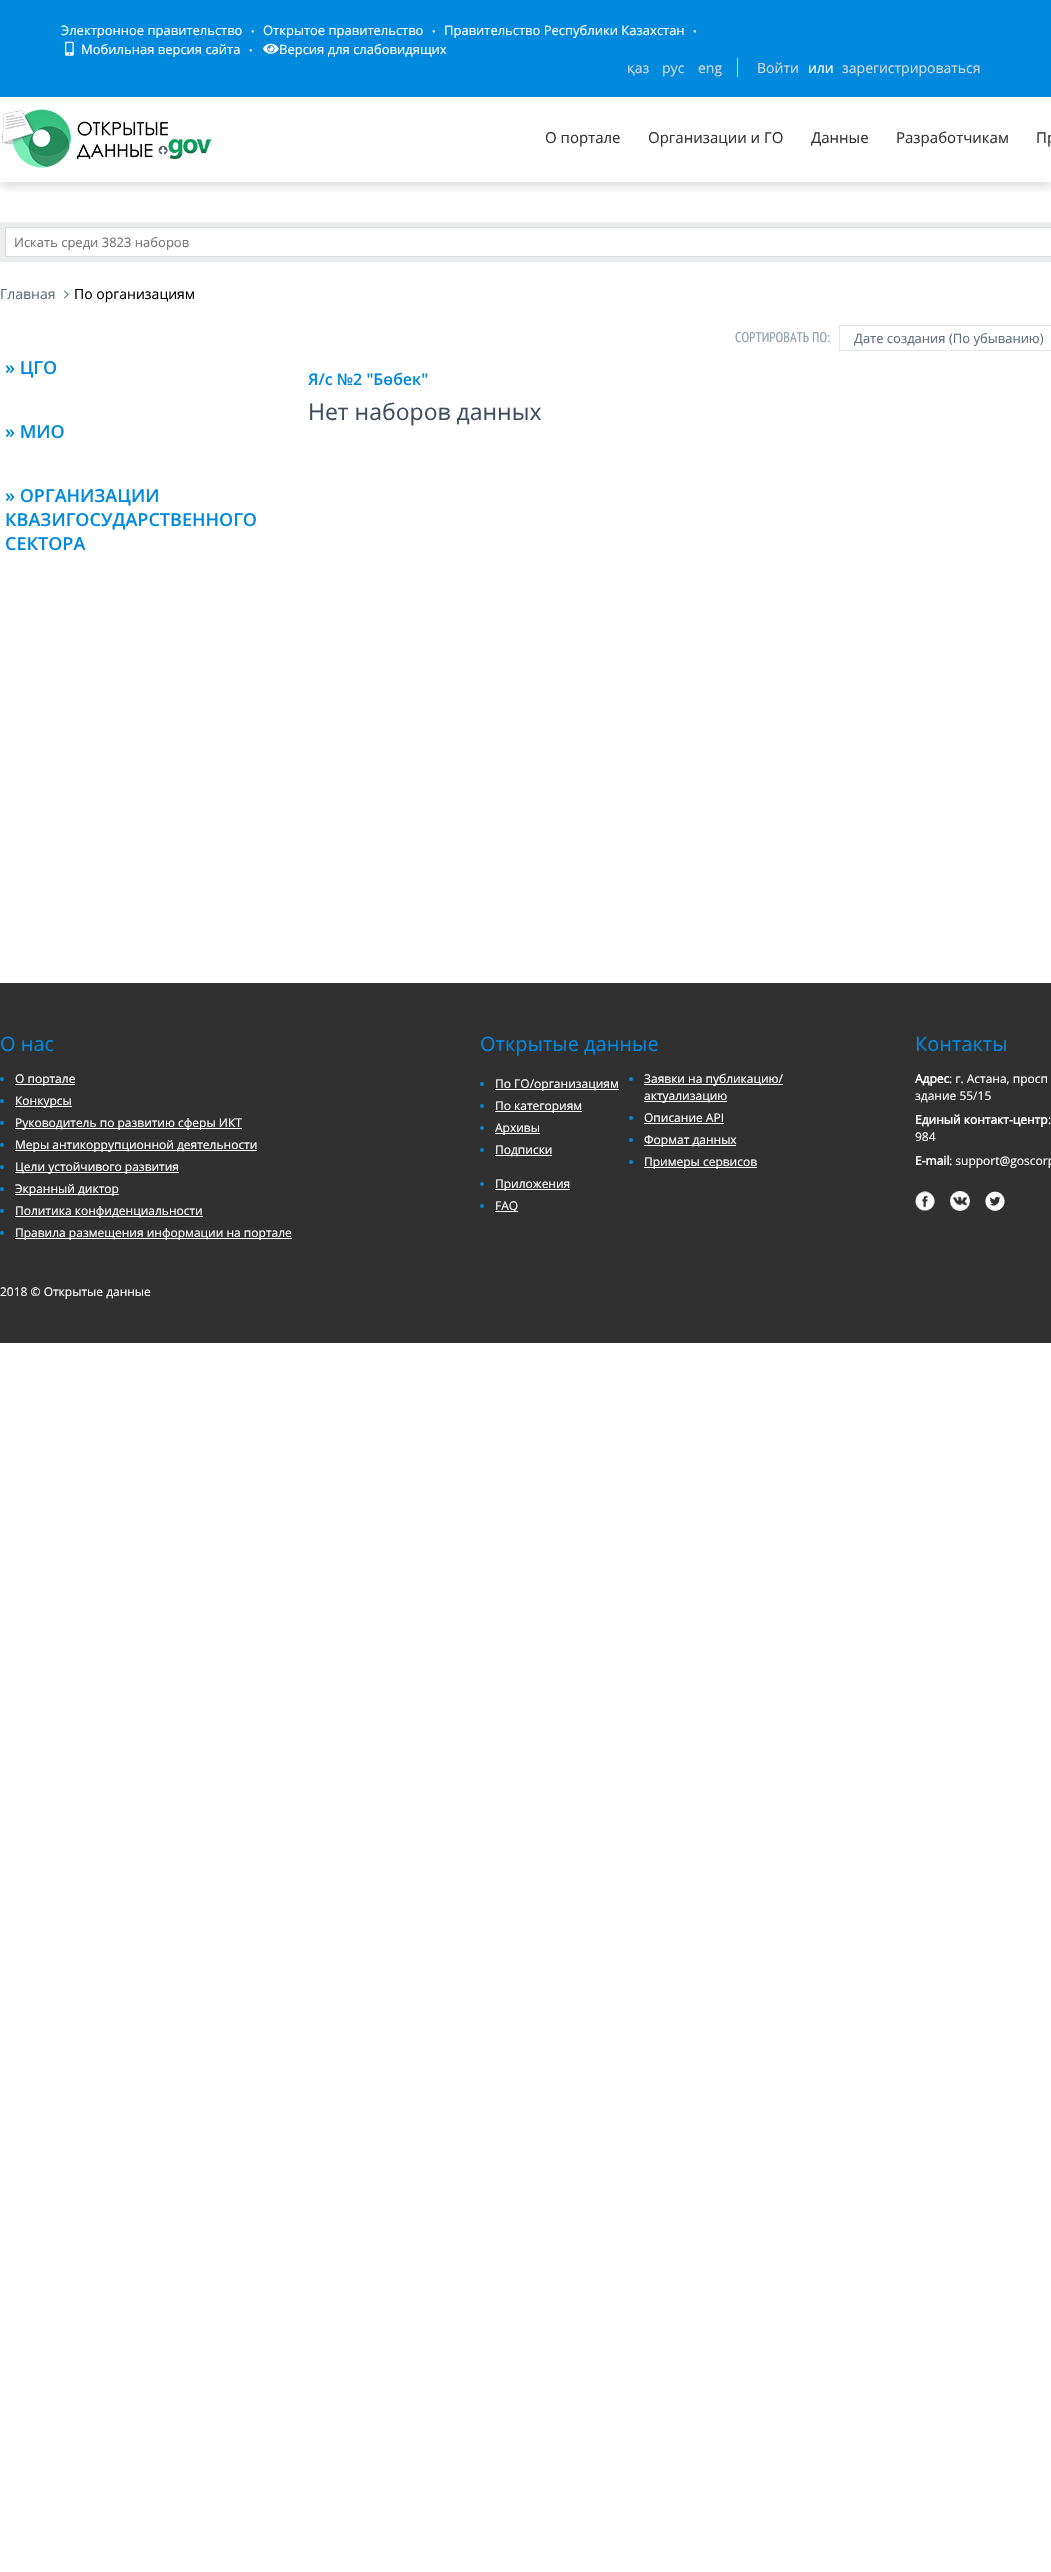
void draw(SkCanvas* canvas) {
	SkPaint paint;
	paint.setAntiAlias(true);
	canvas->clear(0xffffffff);
	canvas->save();
	canvas->clipRect(SkRect::MakeXYWH(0, 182, 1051, 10));
	paint.setColor(0x26000000);
	paint.setMaskFilter(SkMaskFilter::MakeBlur(kNormal_SkBlurStyle, 5));
	canvas->drawRect(SkRect::MakeXYWH(0, 4, 1051, 182), paint);
	paint.setMaskFilter(nullptr);
	canvas->restore();
	paint.setColor(0xff0089dd);
	canvas->drawRect(SkRect::MakeXYWH(0, 0, 1051, 97), paint);
	SkFont f1(fontMgr->matchFamilyStyle("Open Sans", SkFontStyle::Normal()), 13);
	f1.setSubpixel(true);
	paint.setColor(0xffffffff);
	canvas->drawString("Электронное правительство", 61, 35, f1, paint);
	SkFont f2(fontMgr->matchFamilyStyle("Liberation Sans", SkFontStyle::Normal()), 6);
	f2.setSubpixel(true);
	paint.setColor(0xffd8d8d8);
	canvas->drawString("●", 251, 33, f2, paint);
	paint.setColor(0xffffffff);
	canvas->drawString("Открытое правительство", 263, 35, f1, paint);
	paint.setColor(0xffd8d8d8);
	canvas->drawString("●", 432, 33, f2, paint);
	paint.setColor(0xffffffff);
	canvas->drawString("Правительство Республики Казахстан", 444, 35, f1, paint);
	paint.setColor(0xffd8d8d8);
	canvas->drawString("●", 693, 33, f2, paint);
	canvas->drawImageRect(SkImages::DeferredFromEncodedData(SkData::MakeFromFileName("img1.png")), SkRect::MakeXYWH(65, 41, 9, 15), SkSamplingOptions());
	paint.setColor(0xffffffff);
	canvas->drawString("Мобильная версия сайта", 81, 54, f1, paint);
	paint.setColor(0xffd8d8d8);
	canvas->drawString("●", 249, 52, f2, paint);
	canvas->drawImageRect(SkImages::DeferredFromEncodedData(SkData::MakeFromFileName("img2.png")), SkRect::MakeXYWH(263, 43, 16, 11), SkSamplingOptions());
	paint.setColor(0xffffffff);
	canvas->drawString("Версия для слабовидящих", 279, 54, f1, paint);
	paint.setColor(0xffd8d8d8);
	canvas->drawRect(SkRect::MakeXYWH(737, 58, 1, 19), paint);
	SkFont f3(fontMgr->matchFamilyStyle("Open Sans", SkFontStyle::Normal()), 14);
	f3.setSubpixel(true);
	canvas->drawString("қаз", 627, 73, f3, paint);
	canvas->drawString("рус", 662, 73, f3, paint);
	canvas->drawString("eng", 698, 73, f3, paint);
	canvas->drawString("Войти", 757, 73, f3, paint);
	paint.setColor(0xffffffff);
	canvas->drawString("или", 808, 73, f3, paint);
	paint.setColor(0xffd8d8d8);
	canvas->drawString("зарегистрироваться", 842, 73, f3, paint);
	canvas->drawImageRect(SkImages::DeferredFromEncodedData(SkData::MakeFromFileName("img3.png")), SkRect::MakeXYWH(2, 109, 210, 59), SkSamplingOptions());
	SkFont f4(fontMgr->matchFamilyStyle("Open Sans", SkFontStyle::Normal()), 15);
	f4.setSubpixel(true);
	paint.setColor(0xff333333);
	canvas->drawString("О портале", 545, 143, f4, paint);
	canvas->drawString("Организации и ГО", 648, 143, f4, paint);
	canvas->drawString("Данные", 811, 143, f4, paint);
	canvas->drawString("Разработчикам", 896, 143, f4, paint);
	canvas->drawString("Пр", 1036, 143, f4, paint);
	paint.setStroke(true);
	paint.setStrokeWidth(5);
	paint.setColor(0xffebedef);
	canvas->drawRect(SkRect::MakeXYWH(2.5, 224.5, 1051, 35), paint);
	paint.setStrokeWidth(1);
	paint.setColor(0xffdadbdb);
	canvas->drawRect(SkRect::MakeXYWH(5.5, 227.5, 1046, 29), paint);
	paint.setStroke(false);
	paint.setColor(0xff757575);
	canvas->drawString("Искать среди 3823 наборов", 14, 247, f1, paint);
	paint.setColor(0xff5f6d7b);
	canvas->drawString("Главная", 0, 299, f3, paint);
	canvas->drawImageRect(SkImages::DeferredFromEncodedData(SkData::MakeFromFileName("img4.png")), SkRect::MakeXYWH(64, 290, 5, 9), SkSamplingOptions());
	paint.setColor(0xff000000);
	canvas->drawString("По организациям", 74, 299, f3, paint);
	SkFont f5(fontMgr->matchFamilyStyle("Open Sans", SkFontStyle(600, SkFontStyle::kNormal_Width, SkFontStyle::kUpright_Slant)), 18);
	f5.setSubpixel(true);
	paint.setColor(0xff0089dd);
	canvas->drawString("» ЦГО", 5, 374, f5, paint);
	canvas->drawString("» МИО", 5, 438, f5, paint);
	canvas->drawString("» ОРГАНИЗАЦИИ", 5, 502, f5, paint);
	canvas->drawString("КВАЗИГОСУДАРСТВЕННОГО", 5, 526, f5, paint);
	canvas->drawString("СЕКТОРА", 5, 550, f5, paint);
	SkFont f6(fontMgr->matchFamilyStyle("PT Sans Narrow", SkFontStyle::Normal()), 14);
	f6.setSubpixel(true);
	paint.setColor(0xff8e9ca8);
	canvas->drawString("СОРТИРОВАТЬ ПО:", 735, 342, f6, paint);
	paint.setStroke(true);
	paint.setColor(0xffe4e6e8);
	canvas->drawRect(SkRect::MakeXYWH(839.5, 325.5, 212, 25), paint);
	paint.setStroke(false);
	paint.setColor(0xff5f6d7b);
	canvas->drawString("Дате создания (По убыванию)", 854, 343, f1, paint);
	SkFont f7(fontMgr->matchFamilyStyle("Open Sans", SkFontStyle(600, SkFontStyle::kNormal_Width, SkFontStyle::kUpright_Slant)), 16);
	f7.setSubpixel(true);
	paint.setColor(0xff0089dd);
	canvas->drawString("Я/с №2 \"Бөбек\"", 308, 385, f7, paint);
	SkFont f8(fontMgr->matchFamilyStyle("Open Sans", SkFontStyle::Normal()), 23);
	f8.setSubpixel(true);
	paint.setColor(0xff3e4d5c);
	canvas->drawString("Нет наборов данных", 308, 420, f8, paint);
	paint.setColor(0xff313030);
	canvas->drawRect(SkRect::MakeXYWH(0, 983, 1051, 360), paint);
	SkFont f9(fontMgr->matchFamilyStyle("Open Sans", SkFontStyle::Normal()), 20);
	f9.setSubpixel(true);
	paint.setColor(0xff0089dd);
	canvas->drawString("О нас", 0, 1051, f9, paint);
	canvas->drawCircle(2, 1079, 2, paint);
	paint.setColor(0xffffffff);
	canvas->drawRect(SkRect::MakeXYWH(15, 1084, 60, 1), paint);
	SkFont f10(fontMgr->matchFamilyStyle("Open Sans", SkFontStyle::Normal()), 12);
	f10.setSubpixel(true);
	canvas->drawString("О портале", 15, 1083, f10, paint);
	paint.setColor(0xff0089dd);
	canvas->drawCircle(2, 1101, 2, paint);
	paint.setColor(0xffffffff);
	canvas->drawRect(SkRect::MakeXYWH(15, 1106, 57, 1), paint);
	canvas->drawString("Конкурсы", 15, 1105, f10, paint);
	paint.setColor(0xff0089dd);
	canvas->drawCircle(2, 1123, 2, paint);
	paint.setColor(0xffffffff);
	canvas->drawRect(SkRect::MakeXYWH(15, 1128, 227, 1), paint);
	canvas->drawString("Руководитель по развитию сферы ИКТ", 15, 1127, f10, paint);
	paint.setColor(0xff0089dd);
	canvas->drawCircle(2, 1145, 2, paint);
	paint.setColor(0xffffffff);
	canvas->drawRect(SkRect::MakeXYWH(15, 1150, 242, 1), paint);
	canvas->drawString("Меры антикоррупционной деятельности", 15, 1149, f10, paint);
	paint.setColor(0xff0089dd);
	canvas->drawCircle(2, 1167, 2, paint);
	paint.setColor(0xffffffff);
	canvas->drawRect(SkRect::MakeXYWH(15, 1172, 164, 1), paint);
	canvas->drawString("Цели устойчивого развития", 15, 1171, f10, paint);
	paint.setColor(0xff0089dd);
	canvas->drawCircle(2, 1189, 2, paint);
	paint.setColor(0xffffffff);
	canvas->drawRect(SkRect::MakeXYWH(15, 1194, 104, 1), paint);
	canvas->drawString("Экранный диктор", 15, 1193, f10, paint);
	paint.setColor(0xff0089dd);
	canvas->drawCircle(2, 1211, 2, paint);
	paint.setColor(0xffffffff);
	canvas->drawRect(SkRect::MakeXYWH(15, 1216, 188, 1), paint);
	canvas->drawString("Политика конфиденциальности", 15, 1215, f10, paint);
	paint.setColor(0xff0089dd);
	canvas->drawCircle(2, 1233, 2, paint);
	paint.setColor(0xffffffff);
	canvas->drawRect(SkRect::MakeXYWH(15, 1238, 277, 1), paint);
	canvas->drawString("Правила размещения информации на портале", 15, 1237, f10, paint);
	canvas->drawString("2018 © Открытые данные", 0, 1296, f10, paint);
	paint.setColor(0xff0089dd);
	canvas->drawString("Открытые данные", 480, 1051, f9, paint);
	canvas->drawCircle(631, 1079, 2, paint);
	paint.setColor(0xffffffff);
	canvas->drawRect(SkRect::MakeXYWH(644, 1084, 139, 1), paint);
	canvas->drawString("Заявки на публикацию/", 644, 1083, f10, paint);
	canvas->drawRect(SkRect::MakeXYWH(644, 1101, 83, 1), paint);
	canvas->drawString("актуализацию", 644, 1100, f10, paint);
	paint.setColor(0xff0089dd);
	canvas->drawCircle(631, 1118, 2, paint);
	paint.setColor(0xffffffff);
	canvas->drawString("Описание API", 644, 1122, f10, paint);
	canvas->drawRect(SkRect::MakeXYWH(644, 1123, 80, 1), paint);
	paint.setColor(0xff0089dd);
	canvas->drawCircle(631, 1140, 2, paint);
	paint.setColor(0xffffffff);
	canvas->drawRect(SkRect::MakeXYWH(644, 1145, 92, 1), paint);
	canvas->drawString("Формат данных", 644, 1144, f10, paint);
	paint.setColor(0xff0089dd);
	canvas->drawCircle(631, 1162, 2, paint);
	paint.setColor(0xffffffff);
	canvas->drawRect(SkRect::MakeXYWH(644, 1167, 113, 1), paint);
	canvas->drawString("Примеры сервисов", 644, 1166, f10, paint);
	paint.setColor(0xff0089dd);
	canvas->drawCircle(482, 1184, 2, paint);
	paint.setColor(0xffffffff);
	canvas->drawRect(SkRect::MakeXYWH(495, 1189, 75, 1), paint);
	canvas->drawString("Приложения", 495, 1188, f10, paint);
	paint.setColor(0xff0089dd);
	canvas->drawCircle(482, 1206, 2, paint);
	paint.setColor(0xffffffff);
	canvas->drawRect(SkRect::MakeXYWH(495, 1211, 23, 1), paint);
	canvas->drawString("FAQ", 495, 1210, f10, paint);
	paint.setColor(0xff0089dd);
	canvas->drawCircle(482, 1084, 2, paint);
	paint.setColor(0xffffffff);
	canvas->drawRect(SkRect::MakeXYWH(495, 1089, 124, 1), paint);
	canvas->drawString("По ГО/организациям", 495, 1088, f10, paint);
	paint.setColor(0xff0089dd);
	canvas->drawCircle(482, 1106, 2, paint);
	paint.setColor(0xffffffff);
	canvas->drawRect(SkRect::MakeXYWH(495, 1111, 87, 1), paint);
	canvas->drawString("По категориям", 495, 1110, f10, paint);
	paint.setColor(0xff0089dd);
	canvas->drawCircle(482, 1128, 2, paint);
	paint.setColor(0xffffffff);
	canvas->drawRect(SkRect::MakeXYWH(495, 1133, 45, 1), paint);
	canvas->drawString("Архивы", 495, 1132, f10, paint);
	paint.setColor(0xff0089dd);
	canvas->drawCircle(482, 1150, 2, paint);
	paint.setColor(0xffffffff);
	canvas->drawRect(SkRect::MakeXYWH(495, 1155, 57, 1), paint);
	canvas->drawString("Подписки", 495, 1154, f10, paint);
	paint.setColor(0xff0089dd);
	canvas->drawString("Контакты", 915, 1051, f9, paint);
	SkFont f11(fontMgr->matchFamilyStyle("Open Sans", SkFontStyle::Bold()), 12);
	f11.setSubpixel(true);
	paint.setColor(0xffffffff);
	canvas->drawString("Адрес", 915, 1083, f11, paint);
	canvas->drawString(": г. Астана, просп", 949, 1083, f10, paint);
	canvas->drawString("здание 55/15", 915, 1100, f10, paint);
	canvas->drawString("Единый контакт-центр", 915, 1124, f11, paint);
	canvas->drawString(":", 1048, 1124, f10, paint);
	canvas->drawString("984", 915, 1141, f10, paint);
	canvas->drawString("E-mail", 915, 1165, f11, paint);
	canvas->drawString(": support@goscorp", 949, 1165, f10, paint);
	canvas->drawImageRect(SkImages::DeferredFromEncodedData(SkData::MakeFromFileName("img5.png")), SkRect::MakeXYWH(915, 1191, 20, 20), SkSamplingOptions());
	canvas->drawImageRect(SkImages::DeferredFromEncodedData(SkData::MakeFromFileName("img6.png")), SkRect::MakeXYWH(950, 1191, 20, 20), SkSamplingOptions());
	canvas->drawImageRect(SkImages::DeferredFromEncodedData(SkData::MakeFromFileName("img7.png")), SkRect::MakeXYWH(985, 1191, 20, 20), SkSamplingOptions());
}
